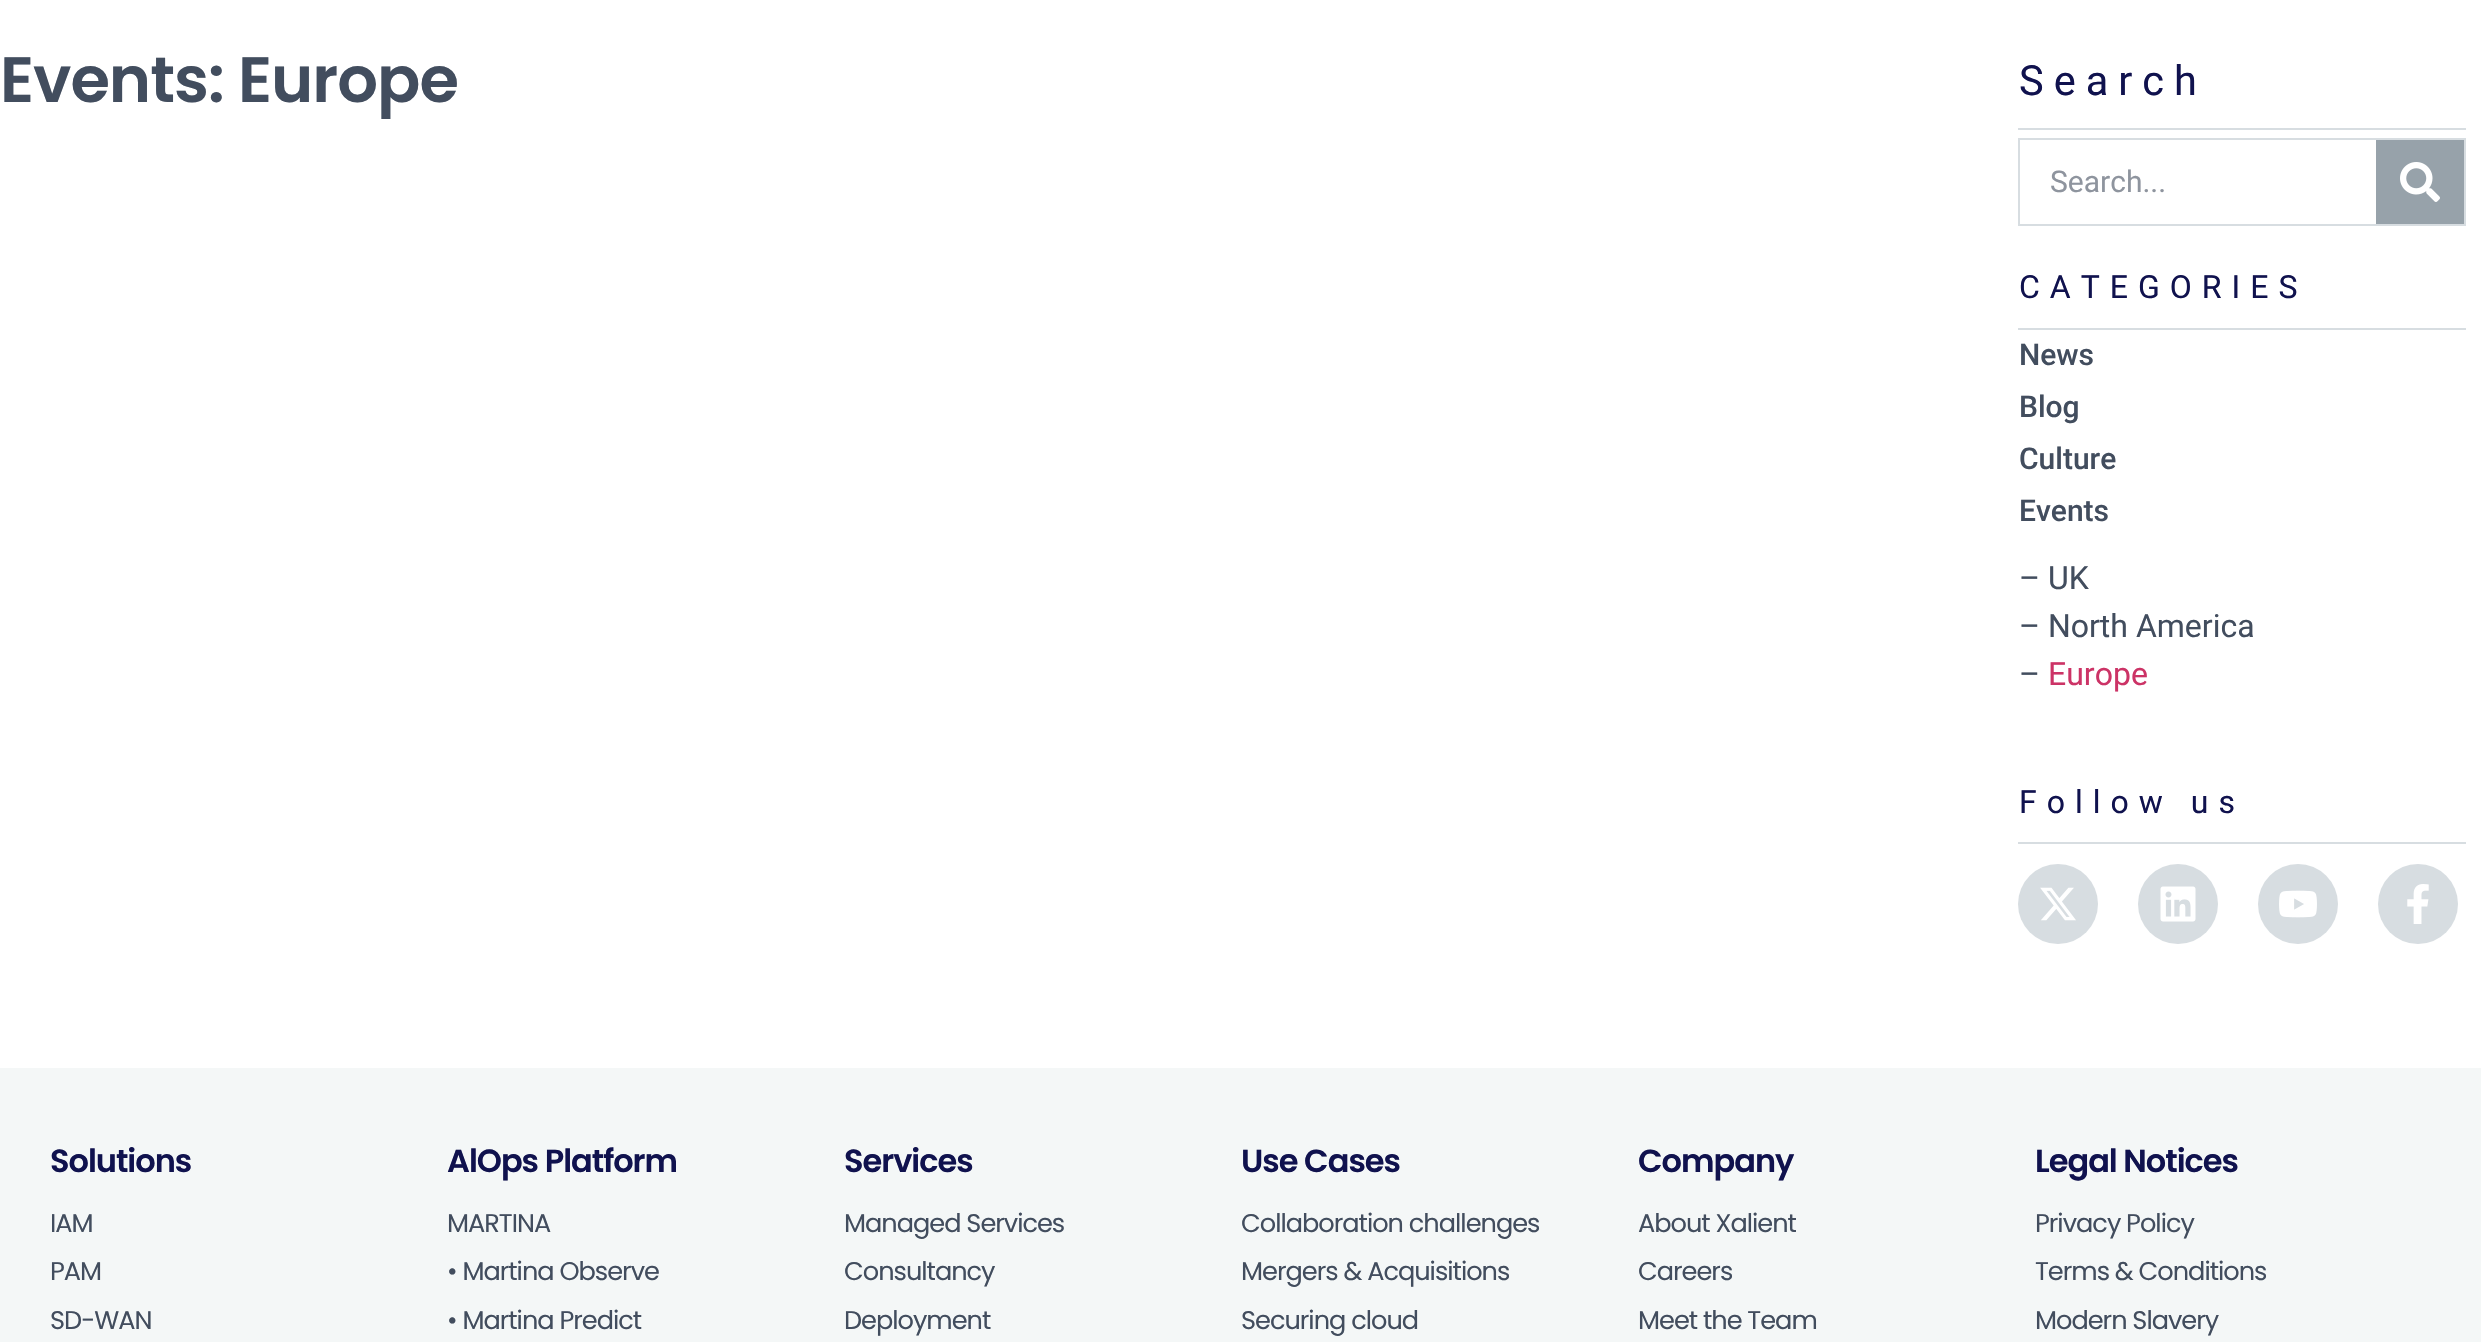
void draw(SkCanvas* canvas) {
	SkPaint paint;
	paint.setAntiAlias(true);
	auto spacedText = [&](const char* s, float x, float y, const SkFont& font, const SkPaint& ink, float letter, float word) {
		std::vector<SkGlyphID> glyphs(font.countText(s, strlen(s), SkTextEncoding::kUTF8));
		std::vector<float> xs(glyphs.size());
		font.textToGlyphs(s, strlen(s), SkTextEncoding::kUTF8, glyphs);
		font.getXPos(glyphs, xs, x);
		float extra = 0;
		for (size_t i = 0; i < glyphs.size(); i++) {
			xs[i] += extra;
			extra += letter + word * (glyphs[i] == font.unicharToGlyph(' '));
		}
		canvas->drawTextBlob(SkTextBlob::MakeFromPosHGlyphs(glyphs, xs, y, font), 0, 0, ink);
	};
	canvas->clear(0xffffffff);
	SkFont f1(fontMgr->matchFamilyStyle("Poppins", SkFontStyle(600, SkFontStyle::kNormal_Width, SkFontStyle::kUpright_Slant)), 64);
	f1.setSubpixel(true);
	paint.setColor(0xff424d5e);
	spacedText("Events: Europe", 0, 102, f1, paint, -1, 0);
	paint.setColor(0xffd7dde1);
	canvas->drawRect(SkRect::MakeXYWH(2018, 128, 448, 2), paint);
	SkFont f2(fontMgr->matchFamilyStyle("Roboto", SkFontStyle::Normal()), 41.5);
	f2.setSubpixel(true);
	paint.setColor(0xff10124e);
	spacedText("Search", 2019, 95, f2, paint, 10, 0);
	paint.setStroke(true);
	paint.setStrokeWidth(2);
	paint.setColor(0xffd7dde1);
	canvas->drawRect(SkRect::MakeXYWH(2019, 139, 446, 86), paint);
	SkFont f3(fontMgr->matchFamilyStyle("Roboto", SkFontStyle::Normal()), 30);
	f3.setSubpixel(true);
	paint.setStroke(false);
	paint.setColor(0xff8e949e);
	canvas->drawString("Search...", 2050, 192, f3, paint);
	paint.setColor(0xff97a2aa);
	canvas->drawRect(SkRect::MakeXYWH(2376, 140, 88, 84), paint);
	canvas->drawImageRect(SkImages::DeferredFromEncodedData(SkData::MakeFromFileName("img1.png")), SkRect::MakeXYWH(2400, 162, 40, 40), SkSamplingOptions());
	paint.setColor(0xffd7dde1);
	canvas->drawRect(SkRect::MakeXYWH(2018, 328, 448, 2), paint);
	SkFont f4(fontMgr->matchFamilyStyle("Roboto", SkFontStyle::Normal()), 32);
	f4.setSubpixel(true);
	paint.setColor(0xff10124e);
	spacedText("CATEGORIES", 2019, 298, f4, paint, 10, 0);
	SkFont f5(fontMgr->matchFamilyStyle("Roboto", SkFontStyle(500, SkFontStyle::kNormal_Width, SkFontStyle::kUpright_Slant)), 30);
	f5.setSubpixel(true);
	paint.setColor(0xff424d5e);
	canvas->drawString("News", 2019, 365, f5, paint);
	canvas->drawString("Blog", 2019, 417, f5, paint);
	canvas->drawString("Culture", 2019, 469, f5, paint);
	canvas->drawString("Events", 2019, 521, f5, paint);
	canvas->drawString("– UK", 2019, 589, f4, paint);
	canvas->drawString("– North America", 2019, 637, f4, paint);
	canvas->drawString("–", 2019, 685, f4, paint);
	paint.setColor(0xffcc3366);
	canvas->drawString("Europe", 2048, 685, f4, paint);
	paint.setColor(0xffd7dde1);
	canvas->drawRect(SkRect::MakeXYWH(2018, 842, 448, 2), paint);
	paint.setColor(0xff10124e);
	spacedText("Follow us", 2019, 813, f4, paint, 10, 0);
	paint.setColor(0xffd7dde1);
	canvas->drawCircle(2058, 904, 40, paint);
	canvas->drawImageRect(SkImages::DeferredFromEncodedData(SkData::MakeFromFileName("img2.png")), SkRect::MakeXYWH(2040, 887, 36, 34), SkSamplingOptions());
	canvas->drawCircle(2178, 904, 40, paint);
	canvas->drawImageRect(SkImages::DeferredFromEncodedData(SkData::MakeFromFileName("img3.png")), SkRect::MakeXYWH(2160, 886, 36, 36), SkSamplingOptions());
	canvas->drawCircle(2298, 904, 40, paint);
	canvas->drawImageRect(SkImages::DeferredFromEncodedData(SkData::MakeFromFileName("img4.png")), SkRect::MakeXYWH(2279, 890, 38, 28), SkSamplingOptions());
	canvas->drawCircle(2418, 904, 40, paint);
	canvas->drawImageRect(SkImages::DeferredFromEncodedData(SkData::MakeFromFileName("img5.png")), SkRect::MakeXYWH(2407, 884, 22, 40), SkSamplingOptions());
	paint.setColor(0xfff4f7f7);
	canvas->drawRect(SkRect::MakeXYWH(0, 1068, 2481, 274), paint);
	SkFont f6(fontMgr->matchFamilyStyle("Poppins", SkFontStyle(600, SkFontStyle::kNormal_Width, SkFontStyle::kUpright_Slant)), 32);
	f6.setSubpixel(true);
	paint.setColor(0xff10124e);
	spacedText("Solutions", 50, 1172, f6, paint, -1, 0);
	SkFont f7(fontMgr->matchFamilyStyle("Poppins", SkFontStyle::Normal()), 25.6);
	f7.setSubpixel(true);
	paint.setColor(0xff424d5e);
	spacedText("IAM", 50, 1232, f7, paint, -1, 0);
	spacedText("PAM", 50, 1280, f7, paint, -1, 0);
	spacedText("SD-WAN", 50, 1329, f7, paint, -1, 0);
	paint.setColor(0xff10124e);
	spacedText("AlOps Platform", 447, 1172, f6, paint, -1, 0);
	paint.setColor(0xff424d5e);
	spacedText("MARTINA", 447, 1232, f7, paint, -1, 0);
	spacedText("• Martina Observe", 447, 1280, f7, paint, -1, 0);
	spacedText("• Martina Predict", 447, 1329, f7, paint, -1, 0);
	paint.setColor(0xff10124e);
	spacedText("Services", 844, 1172, f6, paint, -1, 0);
	paint.setColor(0xff424d5e);
	spacedText("Managed Services", 844, 1232, f7, paint, -1, 0);
	spacedText("Consultancy", 844, 1280, f7, paint, -1, 0);
	spacedText("Deployment", 844, 1329, f7, paint, -1, 0);
	paint.setColor(0xff10124e);
	spacedText("Use Cases", 1241, 1172, f6, paint, -1, 0);
	paint.setColor(0xff424d5e);
	spacedText("Collaboration challenges", 1241, 1232, f7, paint, -1, 0);
	spacedText("Mergers & Acquisitions", 1241, 1280, f7, paint, -1, 0);
	spacedText("Securing cloud", 1241, 1329, f7, paint, -1, 0);
	paint.setColor(0xff10124e);
	spacedText("Company", 1638, 1172, f6, paint, -1, 0);
	paint.setColor(0xff424d5e);
	spacedText("About Xalient", 1638, 1232, f7, paint, -1, 0);
	spacedText("Careers", 1638, 1280, f7, paint, -1, 0);
	spacedText("Meet the Team", 1638, 1329, f7, paint, -1, 0);
	paint.setColor(0xff10124e);
	spacedText("Legal Notices", 2035, 1172, f6, paint, -1, 0);
	paint.setColor(0xff424d5e);
	spacedText("Privacy Policy", 2035, 1232, f7, paint, -1, 0);
	spacedText("Terms & Conditions", 2035, 1280, f7, paint, -1, 0);
	spacedText("Modern Slavery", 2035, 1329, f7, paint, -1, 0);
}
